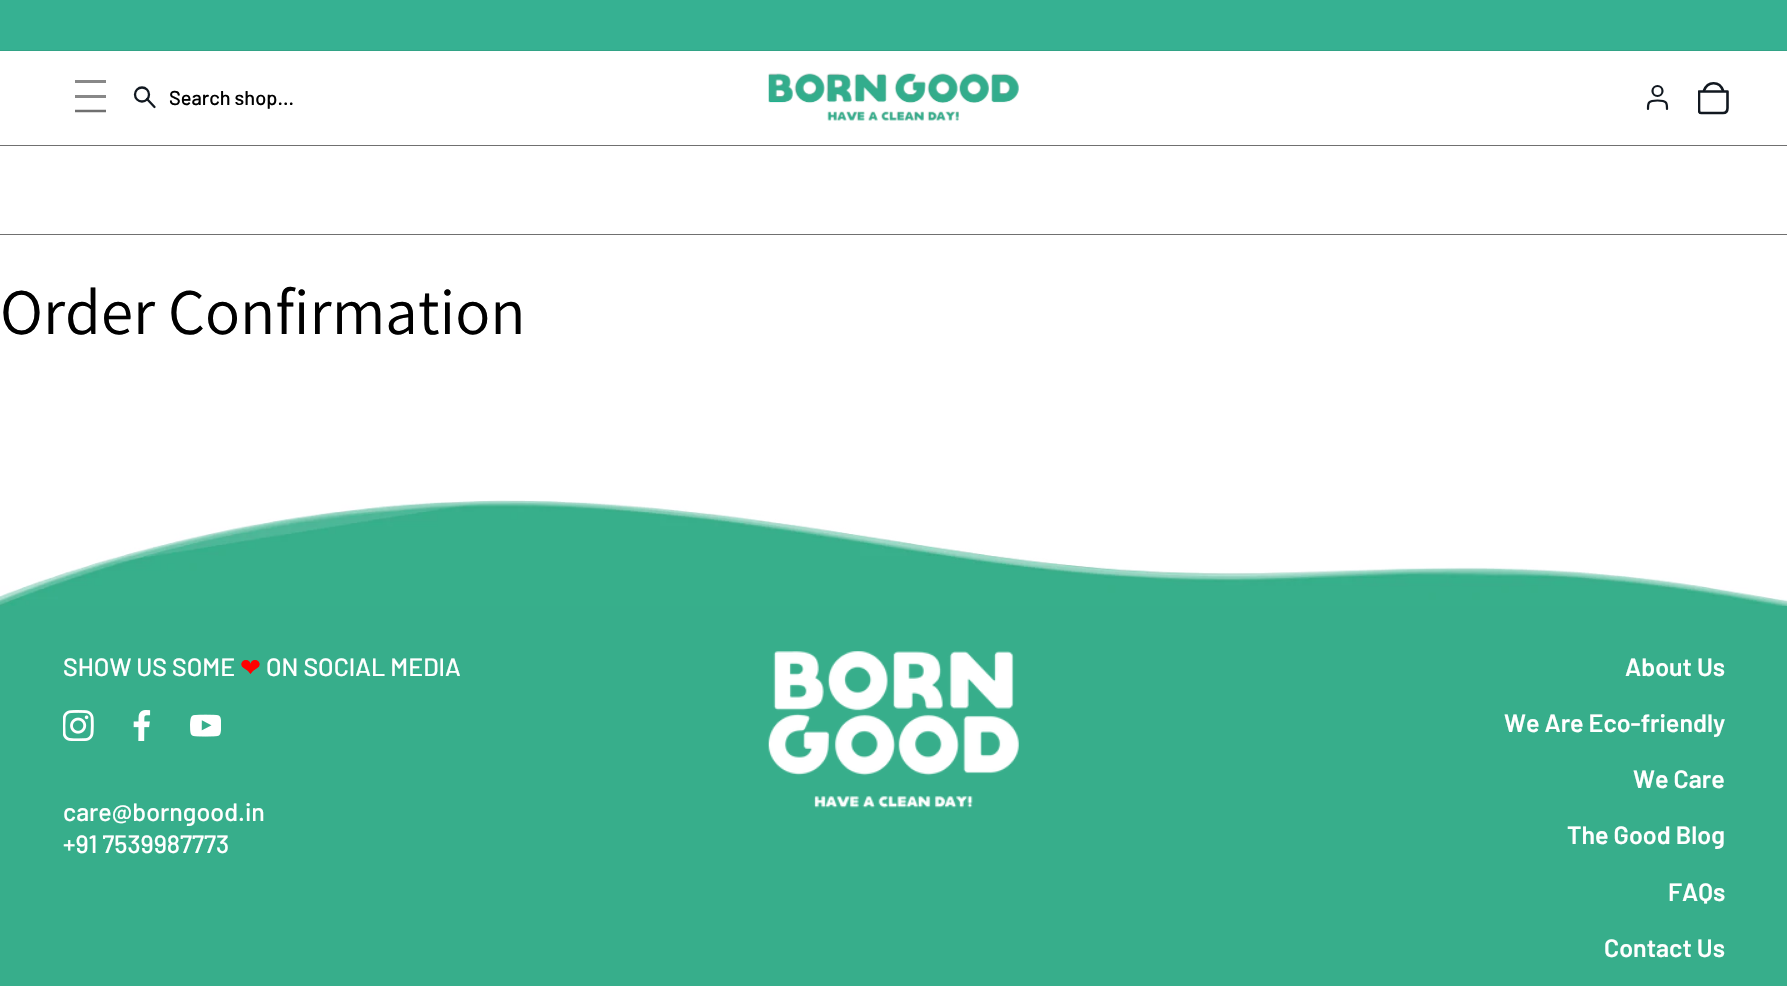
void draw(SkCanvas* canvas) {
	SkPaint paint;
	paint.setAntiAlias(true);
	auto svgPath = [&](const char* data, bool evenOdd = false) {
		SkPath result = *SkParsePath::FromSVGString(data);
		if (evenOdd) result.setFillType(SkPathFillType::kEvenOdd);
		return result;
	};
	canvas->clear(0xffffffff);
	paint.setColor(0xff36b192);
	canvas->drawRect(SkRect::MakeXYWH(0, 0, 1787, 50), paint);
	paint.setColor(0xff32a386);
	canvas->drawRect(SkRect::MakeXYWH(0, 50, 1787, 1), paint);
	paint.setColor(0xff707070);
	canvas->drawRect(SkRect::MakeXYWH(0, 145, 1787, 1), paint);
	paint.setColor(0xff888888);
	canvas->drawRect(SkRect::MakeXYWH(75, 80, 31, 3), paint);
	canvas->drawRect(SkRect::MakeXYWH(75, 95, 31, 3), paint);
	paint.setStroke(true);
	paint.setStrokeWidth(2.5);
	paint.setColor(0xff707070);
	canvas->drawPath(svgPath("M75 111H106"), paint);
	paint.setStrokeWidth(2.3);
	paint.setColor(0xff111820);
	canvas->drawCircle(142, 94.5, 7, paint);
	paint.setStrokeCap(SkPaint::kRound_Cap);
	paint.setStrokeJoin(SkPaint::kRound_Join);
	canvas->drawPath(svgPath("M154.5 107L147 99"), paint);
	SkFont f1(fontMgr->matchFamilyStyle("Barlow", SkFontStyle(500, SkFontStyle::kNormal_Width, SkFontStyle::kUpright_Slant)), 20);
	f1.setSubpixel(true);
	paint.setStroke(false);
	paint.setColor(0xff000000);
	canvas->drawString("Search shop...", 169, 105, f1, paint);
	canvas->drawImageRect(SkImages::DeferredFromEncodedData(SkData::MakeFromFileName("img1.png")), SkRect::MakeXYWH(768, 73, 251, 48), SkSamplingOptions());
	paint.setStroke(true);
	paint.setStrokeWidth(2.2);
	paint.setColor(0xff111820);
	canvas->drawPath(svgPath("M1648 109C1648 103.5 1647.5 100.5 1657.5 100.5C1667.5 100.5 1667 103.5 1667 109"), paint);
	paint.setStrokeCap(SkPaint::kButt_Cap);
	paint.setStrokeJoin(SkPaint::kMiter_Join);
	canvas->drawCircle(1657.5, 91, 5, paint);
	paint.setStrokeWidth(2.6);
	paint.setStrokeCap(SkPaint::kRound_Cap);
	paint.setStrokeJoin(SkPaint::kRound_Join);
	canvas->drawPath(svgPath("M1704 90.5C1707.5 81 1719.5 80.5 1723 90.5"), paint);
	canvas->save();
	canvas->clipRect(SkRect::MakeXYWH(1698, 76, 31, 44));
	canvas->drawPath(svgPath("M1699 91.5H1727.5V108C1727.5 109.5 1727 113 1723 113H1701.5C1699 113 1699 111.5 1699 108.5Z"), paint);
	canvas->restore();
	paint.setStroke(false);
	paint.setColor(0xff707070);
	canvas->drawRect(SkRect::MakeXYWH(0, 234, 1787, 1), paint);
	SkFont f2(fontMgr->matchFamilyStyle("Assistant", SkFontStyle::Normal()), 65);
	f2.setSubpixel(true);
	paint.setColor(0xff000000);
	canvas->drawString("Order Confirmation", 0, 334, f2, paint);
	canvas->drawImageRect(SkImages::DeferredFromEncodedData(SkData::MakeFromFileName("img2.png")), SkRect::MakeXYWH(0, 500, 1787, 106), SkSamplingOptions());
	paint.setColor(0xff37ae8b);
	canvas->drawRect(SkRect::MakeXYWH(0, 606, 1787, 380), paint);
	SkFont f3(fontMgr->matchFamilyStyle("Barlow", SkFontStyle(500, SkFontStyle::kNormal_Width, SkFontStyle::kUpright_Slant)), 25);
	f3.setSubpixel(true);
	paint.setColor(0xffffffff);
	canvas->drawString("SHOW US SOME", 63, 676, f3, paint);
	SkFont f4(fontMgr->matchFamilyStyle("DejaVu Sans", SkFontStyle::Normal()), 25);
	f4.setSubpixel(true);
	paint.setColor(0xffff0000);
	canvas->drawString("❤", 240, 676, f4, paint);
	paint.setColor(0xffffffff);
	canvas->drawString("ON SOCIAL MEDIA", 266, 676, f3, paint);
	canvas->drawImageRect(SkImages::DeferredFromEncodedData(SkData::MakeFromFileName("img3.png")), SkRect::MakeXYWH(63, 710, 31, 31), SkSamplingOptions());
	canvas->drawImageRect(SkImages::DeferredFromEncodedData(SkData::MakeFromFileName("img4.png")), SkRect::MakeXYWH(133, 710, 18, 31), SkSamplingOptions());
	canvas->drawImageRect(SkImages::DeferredFromEncodedData(SkData::MakeFromFileName("img5.png")), SkRect::MakeXYWH(190, 714, 31, 23), SkSamplingOptions());
	canvas->drawString("care@borngood.in", 63, 821, f3, paint);
	canvas->drawString("+91 7539987773", 63, 853, f3, paint);
	canvas->drawImageRect(SkImages::DeferredFromEncodedData(SkData::MakeFromFileName("img6.png")), SkRect::MakeXYWH(768, 651, 251, 157), SkSamplingOptions());
	SkFont f5(fontMgr->matchFamilyStyle("Barlow", SkFontStyle(600, SkFontStyle::kNormal_Width, SkFontStyle::kUpright_Slant)), 25);
	f5.setSubpixel(true);
	canvas->drawString("About Us", 1625, 676, f5, paint);
	canvas->drawString("We Are Eco-friendly", 1504, 732, f5, paint);
	canvas->drawString("We Care", 1633, 788, f5, paint);
	canvas->drawString("The Good Blog", 1567, 844, f5, paint);
	canvas->drawString("FAQs", 1668, 901, f5, paint);
	canvas->drawString("Contact Us", 1604, 957, f5, paint);
}
